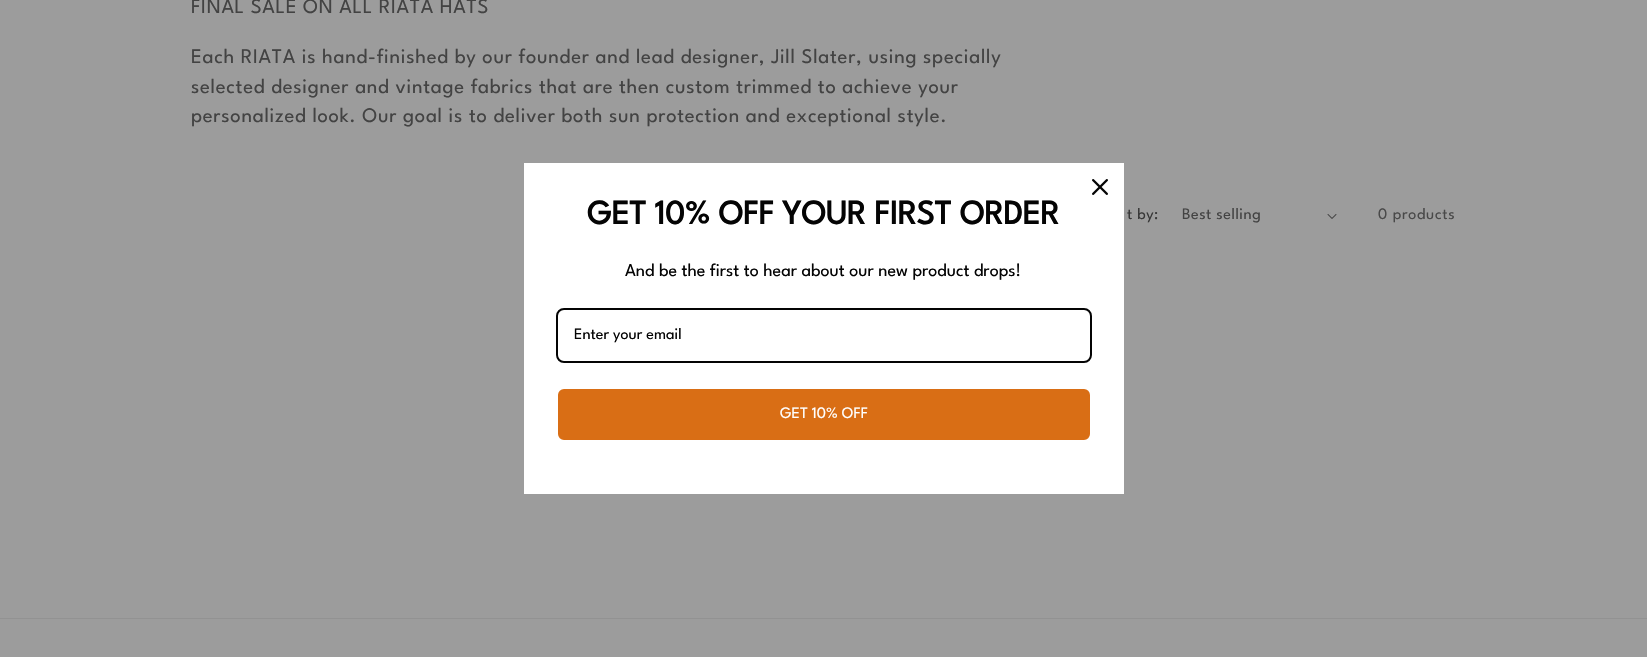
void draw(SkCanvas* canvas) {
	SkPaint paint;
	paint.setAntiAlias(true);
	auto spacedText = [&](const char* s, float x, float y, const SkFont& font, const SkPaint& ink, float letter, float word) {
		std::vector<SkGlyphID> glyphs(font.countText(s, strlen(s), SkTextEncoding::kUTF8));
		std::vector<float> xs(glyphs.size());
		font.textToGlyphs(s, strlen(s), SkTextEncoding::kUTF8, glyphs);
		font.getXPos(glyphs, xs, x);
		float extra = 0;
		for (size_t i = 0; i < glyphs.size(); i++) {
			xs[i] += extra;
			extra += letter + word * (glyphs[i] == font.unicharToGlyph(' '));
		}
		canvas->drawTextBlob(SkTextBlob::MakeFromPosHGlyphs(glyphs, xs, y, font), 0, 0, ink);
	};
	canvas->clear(0xff9c9c9c);
	SkFont f1(fontMgr->matchFamilyStyle("League Spartan", SkFontStyle::Normal()), 20.7);
	f1.setSubpixel(true);
	paint.setColor(0xff434343);
	spacedText("FINAL SALE ON ALL RIATA HATS", 191, 13, f1, paint, 0.7, 0);
	spacedText("Each RIATA is hand-finished by our founder and lead designer, Jill Slater, using specially", 191, 63, f1, paint, 0.7, 0);
	spacedText("selected designer and vintage fabrics that are then custom trimmed to achieve your", 191, 93, f1, paint, 0.7, 0);
	spacedText("personalized look. Our goal is to deliver both sun protection and exceptional style.", 191, 122, f1, paint, 0.7, 0);
	SkFont f2(fontMgr->matchFamilyStyle("League Spartan", SkFontStyle::Normal()), 16);
	f2.setSubpixel(true);
	paint.setColor(0xff373737);
	spacedText("t by:", 1127, 219, f2, paint, 0.5, 0);
	paint.setColor(0xff434343);
	spacedText("Best selling", 1182, 219, f2, paint, 0.5, 0);
	canvas->drawImageRect(SkImages::DeferredFromEncodedData(SkData::MakeFromFileName("img1.png")), SkRect::MakeXYWH(1327, 214, 10, 5), SkSamplingOptions());
	paint.setColor(0xff494949);
	spacedText("0 products", 1378, 219, f2, paint, 0.7, 0);
	paint.setColor(0xffffffff);
	canvas->drawRect(SkRect::MakeXYWH(524, 163, 600, 331), paint);
	canvas->drawImageRect(SkImages::DeferredFromEncodedData(SkData::MakeFromFileName("img2.png")), SkRect::MakeXYWH(1092, 179, 16, 16), SkSamplingOptions());
	SkFont f3(fontMgr->matchFamilyStyle("League Spartan", SkFontStyle::Bold()), 34);
	f3.setSubpixel(true);
	paint.setColor(0xff040404);
	canvas->drawString("GET 10% OFF YOUR FIRST ORDER", 587, 224, f3, paint);
	SkFont f4(fontMgr->matchFamilyStyle("League Spartan", SkFontStyle::Normal()), 18);
	f4.setSubpixel(true);
	canvas->drawString("And be the first to hear about our new product drops!", 625, 276, f4, paint);
	paint.setStroke(true);
	paint.setStrokeWidth(2);
	canvas->drawRoundRect(SkRect::MakeXYWH(557, 309, 534, 53), 7, 7, paint);
	paint.setStroke(false);
	canvas->drawString("Enter your email", 574, 339, f2, paint);
	paint.setColor(0xffd96e15);
	canvas->drawRoundRect(SkRect::MakeXYWH(557, 388, 534, 53), 7, 7, paint);
	paint.setStroke(true);
	paint.setColor(0xffffffff);
	canvas->drawRoundRect(SkRect::MakeXYWH(557, 388, 534, 53), 7, 7, paint);
	paint.setStroke(false);
	canvas->drawString("GET 10% OFF", 780, 418, f2, paint);
	paint.setColor(0xff929292);
	canvas->drawRect(SkRect::MakeXYWH(0, 618, 1647, 1), paint);
}
